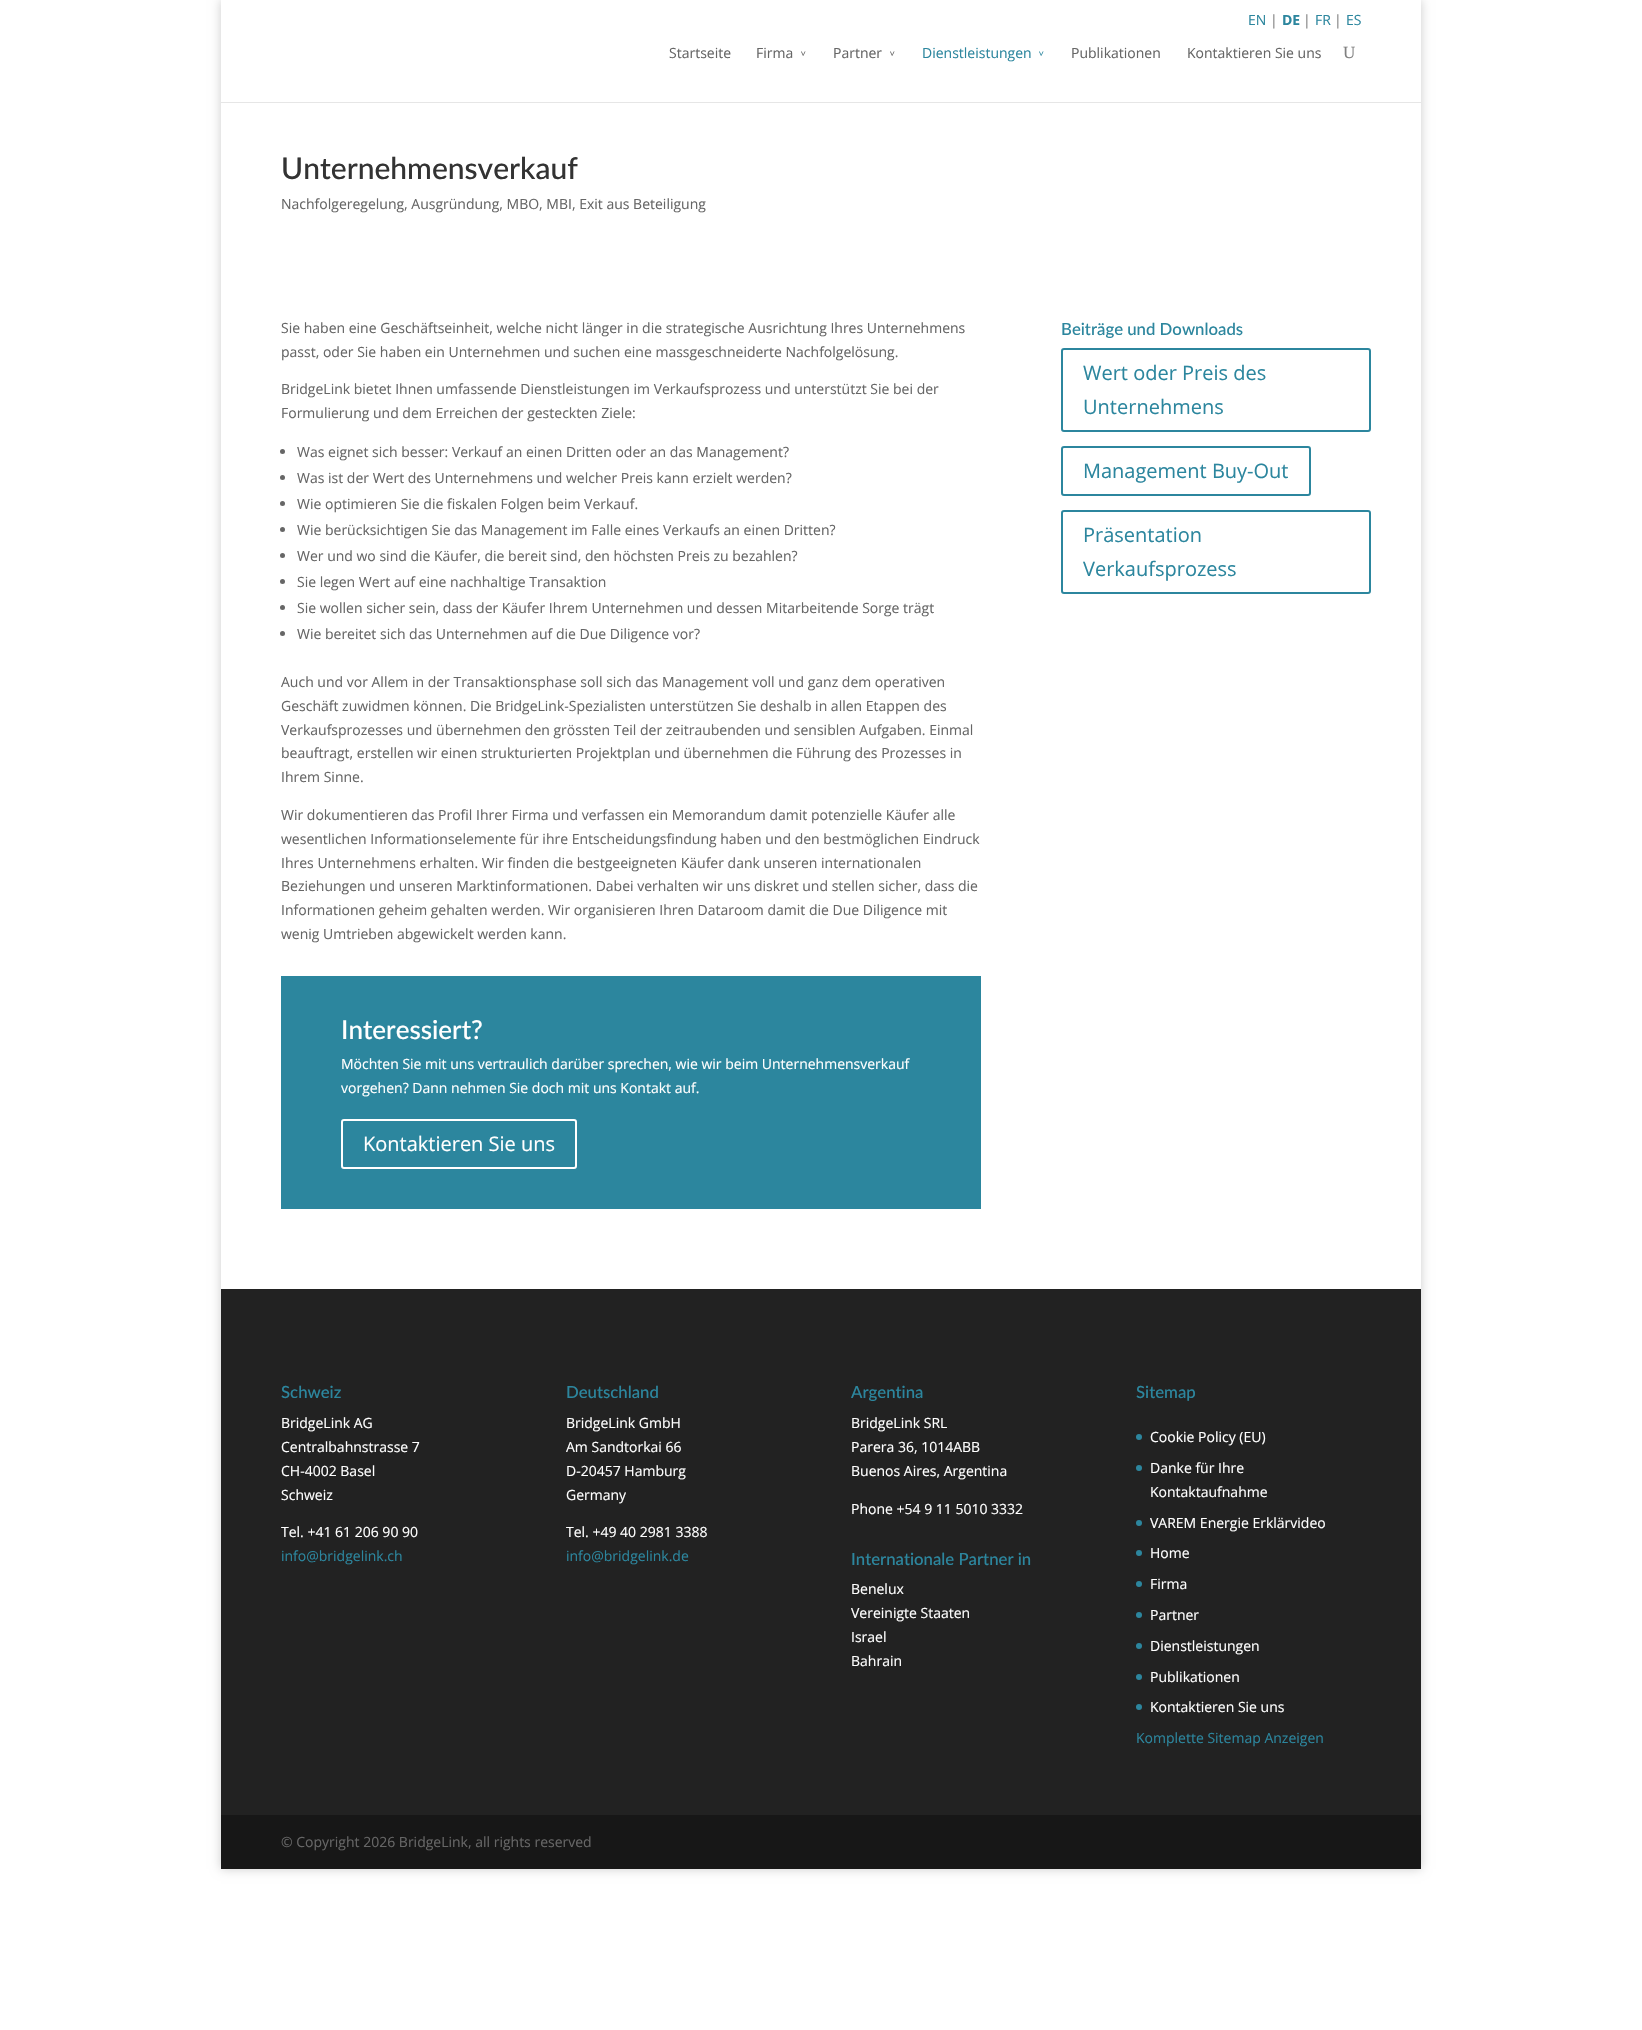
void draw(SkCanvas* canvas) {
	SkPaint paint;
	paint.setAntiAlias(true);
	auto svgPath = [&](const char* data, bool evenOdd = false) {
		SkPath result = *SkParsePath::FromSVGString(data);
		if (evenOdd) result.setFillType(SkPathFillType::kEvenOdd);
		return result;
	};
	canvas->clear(0xffffffff);
	canvas->save();
	canvas->clipPath(svgPath("M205 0H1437V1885H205ZM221 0H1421V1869H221Z", true), true);
	paint.setColor(0x33000000);
	paint.setMaskFilter(SkMaskFilter::MakeBlur(kNormal_SkBlurStyle, 5));
	canvas->drawRect(SkRect::MakeXYWH(221, 0, 1200, 1869), paint);
	paint.setMaskFilter(nullptr);
	canvas->restore();
	paint.setColor(0xffe6e6e6);
	canvas->drawRect(SkRect::MakeXYWH(221, 102, 1200, 1), paint);
	SkFont f1(fontMgr->matchFamilyStyle("Open Sans", SkFontStyle::Normal()), 14);
	f1.setSubpixel(true);
	paint.setColor(0xff2c869e);
	canvas->drawString("EN", 1248, 25, f1, paint);
	paint.setColor(0xff808080);
	canvas->drawString("|", 1270, 25, f1, paint);
	SkFont f2(fontMgr->matchFamilyStyle("Open Sans", SkFontStyle::Bold()), 14);
	f2.setSubpixel(true);
	paint.setColor(0xff2c869e);
	canvas->drawString("DE", 1282, 25, f2, paint);
	paint.setColor(0xff808080);
	canvas->drawString("|", 1303, 25, f1, paint);
	paint.setColor(0xff2c869e);
	canvas->drawString("FR", 1315, 25, f1, paint);
	paint.setColor(0xff808080);
	canvas->drawString("|", 1334, 25, f1, paint);
	paint.setColor(0xff2c869e);
	canvas->drawString("ES", 1346, 25, f1, paint);
	paint.setColor(0xff666666);
	canvas->drawString("Startseite", 669, 58, f1, paint);
	canvas->drawString("Firma", 756, 58, f1, paint);
	SkFont f3(fontMgr->matchFamilyStyle("Open Sans", SkFontStyle(500, SkFontStyle::kNormal_Width, SkFontStyle::kUpright_Slant)), 9);
	f3.setSubpixel(true);
	canvas->save();
	canvas->rotate(90, 800, 51);
	canvas->drawString(">", 800, 51, f3, paint);
	canvas->restore();
	canvas->drawString("Partner", 833, 58, f1, paint);
	canvas->save();
	canvas->rotate(90, 889, 51);
	canvas->drawString(">", 889, 51, f3, paint);
	canvas->restore();
	paint.setColor(0xff2c869e);
	canvas->drawString("Dienstleistungen", 922, 58, f1, paint);
	canvas->save();
	canvas->rotate(90, 1038, 51);
	canvas->drawString(">", 1038, 51, f3, paint);
	canvas->restore();
	paint.setColor(0xff666666);
	canvas->drawString("Publikationen", 1071, 58, f1, paint);
	canvas->drawString("Kontaktieren Sie uns", 1187, 58, f1, paint);
	SkFont f4(fontMgr->matchFamilyStyle("Liberation Serif", SkFontStyle::Normal()), 17);
	f4.setSubpixel(true);
	paint.setColor(0xff808080);
	canvas->drawString("U", 1343, 58, f4, paint);
	SkFont f5(fontMgr->matchFamilyStyle("Lato", SkFontStyle(500, SkFontStyle::kNormal_Width, SkFontStyle::kUpright_Slant)), 30);
	f5.setSubpixel(true);
	paint.setColor(0xff333333);
	canvas->drawString("Unternehmensverkauf", 281, 179, f5, paint);
	paint.setColor(0xff666666);
	canvas->drawString("Nachfolgeregelung, Ausgründung, MBO, MBI, Exit aus Beteiligung", 281, 209, f1, paint);
	canvas->drawString("Sie haben eine Geschäftseinheit, welche nicht länger in die strategische Ausrichtung Ihres Unternehmens", 281, 333, f1, paint);
	canvas->drawString("passt, oder Sie haben ein Unternehmen und suchen eine massgeschneiderte Nachfolgelösung.", 281, 357, f1, paint);
	canvas->drawString("BridgeLink bietet Ihnen umfassende Dienstleistungen im Verkaufsprozess und unterstützt Sie bei der", 281, 394, f1, paint);
	canvas->drawString("Formulierung und dem Erreichen der gesteckten Ziele:", 281, 418, f1, paint);
	canvas->drawCircle(282.5, 451.5, 2.5, paint);
	canvas->drawString("Was eignet sich besser: Verkauf an einen Dritten oder an das Management?", 297, 457, f1, paint);
	canvas->drawCircle(282.5, 477.5, 2.5, paint);
	canvas->drawString("Was ist der Wert des Unternehmens und welcher Preis kann erzielt werden?", 297, 483, f1, paint);
	canvas->drawCircle(282.5, 503.5, 2.5, paint);
	canvas->drawString("Wie optimieren Sie die fiskalen Folgen beim Verkauf.", 297, 509, f1, paint);
	canvas->drawCircle(282.5, 529.5, 2.5, paint);
	canvas->drawString("Wie berücksichtigen Sie das Management im Falle eines Verkaufs an einen Dritten?", 297, 535, f1, paint);
	canvas->drawCircle(282.5, 555.5, 2.5, paint);
	canvas->drawString("Wer und wo sind die Käufer, die bereit sind, den höchsten Preis zu bezahlen?", 297, 561, f1, paint);
	canvas->drawCircle(282.5, 581.5, 2.5, paint);
	canvas->drawString("Sie legen Wert auf eine nachhaltige Transaktion", 297, 587, f1, paint);
	canvas->drawCircle(282.5, 607.5, 2.5, paint);
	canvas->drawString("Sie wollen sicher sein, dass der Käufer Ihrem Unternehmen und dessen Mitarbeitende Sorge trägt", 297, 613, f1, paint);
	canvas->drawCircle(282.5, 633.5, 2.5, paint);
	canvas->drawString("Wie bereitet sich das Unternehmen auf die Due Diligence vor?", 297, 639, f1, paint);
	canvas->drawString("Auch und vor Allem in der Transaktionsphase soll sich das Management voll und ganz dem operativen", 281, 687, f1, paint);
	canvas->drawString("Geschäft zuwidmen können. Die BridgeLink-Spezialisten unterstützen Sie deshalb in allen Etappen des", 281, 711, f1, paint);
	canvas->drawString("Verkaufsprozesses und übernehmen den grössten Teil der zeitraubenden und sensiblen Aufgaben. Einmal", 281, 735, f1, paint);
	canvas->drawString("beauftragt, erstellen wir einen strukturierten Projektplan und übernehmen die Führung des Prozesses in", 281, 758, f1, paint);
	canvas->drawString("Ihrem Sinne.", 281, 782, f1, paint);
	canvas->drawString("Wir dokumentieren das Profil Ihrer Firma und verfassen ein Memorandum damit potenzielle Käufer alle", 281, 820, f1, paint);
	canvas->drawString("wesentlichen Informationselemente für ihre Entscheidungsfindung haben und den bestmöglichen Eindruck", 281, 844, f1, paint);
	canvas->drawString("Ihres Unternehmens erhalten. Wir finden die bestgeeigneten Käufer dank unseren internationalen", 281, 868, f1, paint);
	canvas->drawString("Beziehungen und unseren Marktinformationen. Dabei verhalten wir uns diskret und stellen sicher, dass die", 281, 891, f1, paint);
	canvas->drawString("Informationen geheim gehalten werden. Wir organisieren Ihren Dataroom damit die Due Diligence mit", 281, 915, f1, paint);
	canvas->drawString("wenig Umtrieben abgewickelt werden kann.", 281, 939, f1, paint);
	paint.setColor(0xff2c869e);
	canvas->drawRect(SkRect::MakeXYWH(281, 976, 700, 233), paint);
	SkFont f6(fontMgr->matchFamilyStyle("Lato", SkFontStyle(500, SkFontStyle::kNormal_Width, SkFontStyle::kUpright_Slant)), 26);
	f6.setSubpixel(true);
	paint.setColor(0xffffffff);
	canvas->drawString("Interessiert?", 341, 1039, f6, paint);
	canvas->drawString("Möchten Sie mit uns vertraulich darüber sprechen, wie wir beim Unternehmensverkauf", 341, 1069, f1, paint);
	canvas->drawString("vorgehen? Dann nehmen Sie doch mit uns Kontakt auf.", 341, 1093, f1, paint);
	paint.setStroke(true);
	paint.setStrokeWidth(2);
	canvas->drawRoundRect(SkRect::MakeXYWH(342, 1120, 234, 48), 2, 2, paint);
	SkFont f7(fontMgr->matchFamilyStyle("Open Sans", SkFontStyle::Normal()), 20);
	f7.setSubpixel(true);
	paint.setStroke(false);
	canvas->drawString("Kontaktieren Sie uns", 363, 1151, f7, paint);
	SkFont f8(fontMgr->matchFamilyStyle("Lato", SkFontStyle(500, SkFontStyle::kNormal_Width, SkFontStyle::kUpright_Slant)), 16.75);
	f8.setSubpixel(true);
	paint.setColor(0xff2c869e);
	canvas->drawString("Beiträge und Downloads", 1061, 335, f8, paint);
	paint.setStroke(true);
	canvas->drawRoundRect(SkRect::MakeXYWH(1062, 349, 308, 82), 2, 2, paint);
	paint.setStroke(false);
	canvas->drawString("Wert oder Preis des", 1083, 380, f7, paint);
	canvas->drawString("Unternehmens", 1083, 414, f7, paint);
	paint.setStroke(true);
	canvas->drawRoundRect(SkRect::MakeXYWH(1062, 447, 248, 48), 2, 2, paint);
	paint.setStroke(false);
	canvas->drawString("Management Buy-Out", 1083, 478, f7, paint);
	paint.setStroke(true);
	canvas->drawRoundRect(SkRect::MakeXYWH(1062, 511, 308, 82), 2, 2, paint);
	paint.setStroke(false);
	canvas->drawString("Präsentation", 1083, 542, f7, paint);
	canvas->drawString("Verkaufsprozess", 1083, 576, f7, paint);
	paint.setColor(0xff222222);
	canvas->drawRect(SkRect::MakeXYWH(221, 1289, 1200, 526), paint);
	paint.setColor(0xff2c869e);
	canvas->drawString("Schweiz", 281, 1398, f8, paint);
	paint.setColor(0xffffffff);
	canvas->drawString("BridgeLink AG", 281, 1428, f1, paint);
	canvas->drawString("Centralbahnstrasse 7", 281, 1452, f1, paint);
	canvas->drawString("CH-4002 Basel", 281, 1476, f1, paint);
	canvas->drawString("Schweiz", 281, 1500, f1, paint);
	canvas->drawString("Tel. +41 61 206 90 90", 281, 1537, f1, paint);
	paint.setColor(0xff2c869e);
	canvas->drawString("info@bridgelink.ch", 281, 1561, f1, paint);
	canvas->drawString("Deutschland", 566, 1398, f8, paint);
	paint.setColor(0xffffffff);
	canvas->drawString("BridgeLink GmbH", 566, 1428, f1, paint);
	canvas->drawString("Am Sandtorkai 66", 566, 1452, f1, paint);
	canvas->drawString("D-20457 Hamburg", 566, 1476, f1, paint);
	canvas->drawString("Germany", 566, 1500, f1, paint);
	canvas->drawString("Tel. +49 40 2981 3388", 566, 1537, f1, paint);
	paint.setColor(0xff2c869e);
	canvas->drawString("info@bridgelink.de", 566, 1561, f1, paint);
	canvas->drawString("Argentina", 851, 1398, f8, paint);
	paint.setColor(0xffffffff);
	canvas->drawString("BridgeLink SRL", 851, 1428, f1, paint);
	canvas->drawString("Parera 36, 1014ABB", 851, 1452, f1, paint);
	canvas->drawString("Buenos Aires, Argentina", 851, 1476, f1, paint);
	canvas->drawString("Phone +54 9 11 5010 3332", 851, 1514, f1, paint);
	paint.setColor(0xff2c869e);
	canvas->drawString("Internationale Partner in", 851, 1565, f8, paint);
	paint.setColor(0xffffffff);
	canvas->drawString("Benelux", 851, 1594, f1, paint);
	canvas->drawString("Vereinigte Staaten", 851, 1618, f1, paint);
	canvas->drawString("Israel", 851, 1642, f1, paint);
	canvas->drawString("Bahrain", 851, 1666, f1, paint);
	paint.setColor(0xff2c869e);
	canvas->drawString("Sitemap", 1136, 1398, f8, paint);
	canvas->drawCircle(1139, 1437, 3, paint);
	paint.setColor(0xffffffff);
	canvas->drawString("Cookie Policy (EU)", 1150, 1442, f1, paint);
	paint.setColor(0xff2c869e);
	canvas->drawCircle(1139, 1468, 3, paint);
	paint.setColor(0xffffffff);
	canvas->drawString("Danke für Ihre", 1150, 1473, f1, paint);
	canvas->drawString("Kontaktaufnahme", 1150, 1497, f1, paint);
	paint.setColor(0xff2c869e);
	canvas->drawCircle(1139, 1523, 3, paint);
	paint.setColor(0xffffffff);
	canvas->drawString("VAREM Energie Erklärvideo", 1150, 1528, f1, paint);
	paint.setColor(0xff2c869e);
	canvas->drawCircle(1139, 1553, 3, paint);
	paint.setColor(0xffffffff);
	canvas->drawString("Home", 1150, 1558, f1, paint);
	paint.setColor(0xff2c869e);
	canvas->drawCircle(1139, 1584, 3, paint);
	paint.setColor(0xffffffff);
	canvas->drawString("Firma", 1150, 1589, f1, paint);
	paint.setColor(0xff2c869e);
	canvas->drawCircle(1139, 1615, 3, paint);
	paint.setColor(0xffffffff);
	canvas->drawString("Partner", 1150, 1620, f1, paint);
	paint.setColor(0xff2c869e);
	canvas->drawCircle(1139, 1646, 3, paint);
	paint.setColor(0xffffffff);
	canvas->drawString("Dienstleistungen", 1150, 1651, f1, paint);
	paint.setColor(0xff2c869e);
	canvas->drawCircle(1139, 1677, 3, paint);
	paint.setColor(0xffffffff);
	canvas->drawString("Publikationen", 1150, 1682, f1, paint);
	paint.setColor(0xff2c869e);
	canvas->drawCircle(1139, 1707, 3, paint);
	paint.setColor(0xffffffff);
	canvas->drawString("Kontaktieren Sie uns", 1150, 1712, f1, paint);
	paint.setColor(0xff2c869e);
	canvas->drawString("Komplette Sitemap Anzeigen", 1136, 1743, f1, paint);
	paint.setColor(0xff171717);
	canvas->drawRect(SkRect::MakeXYWH(221, 1815, 1200, 54), paint);
	paint.setColor(0xff666666);
	canvas->drawString("© Copyright 2026 BridgeLink, all rights reserved", 281, 1847, f1, paint);
}
